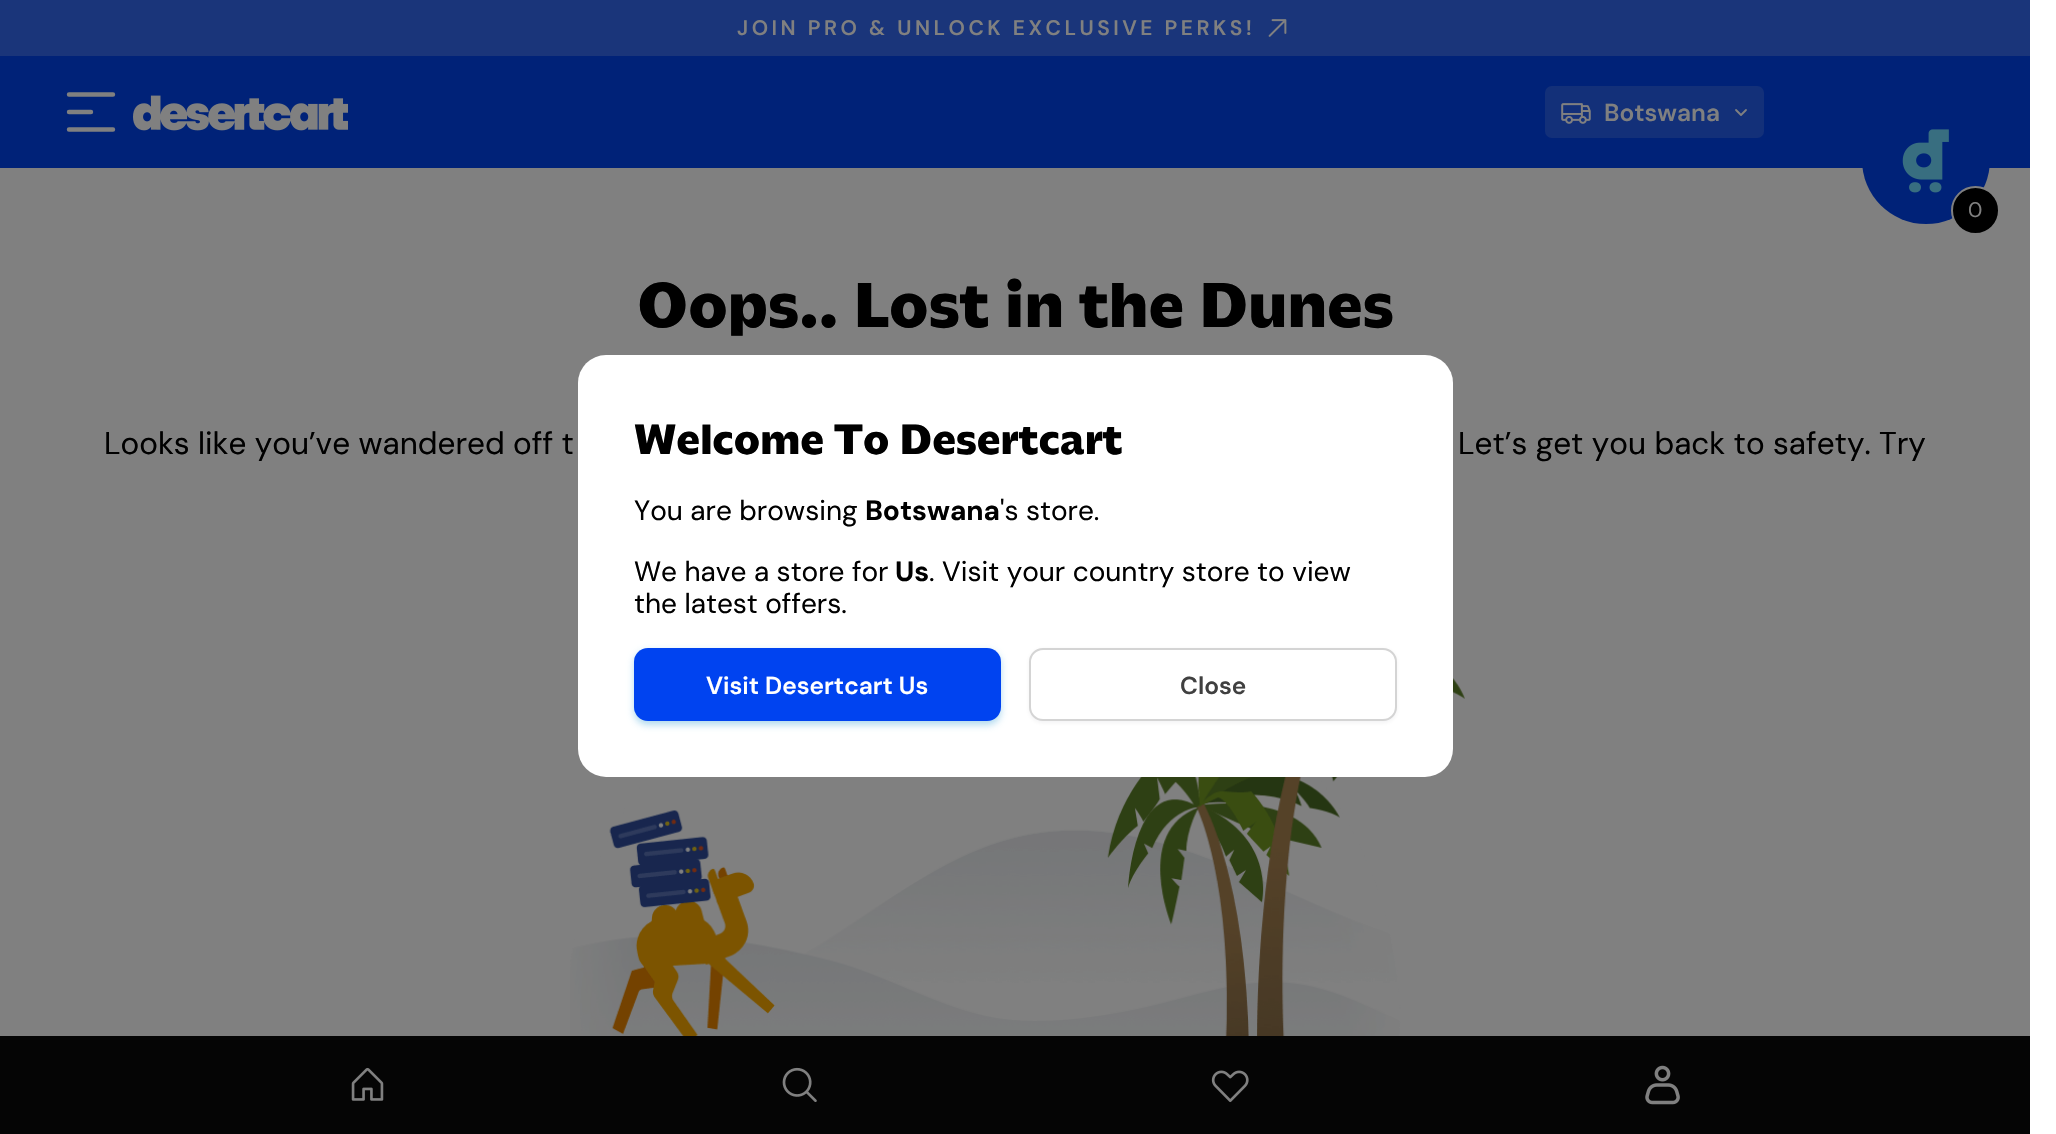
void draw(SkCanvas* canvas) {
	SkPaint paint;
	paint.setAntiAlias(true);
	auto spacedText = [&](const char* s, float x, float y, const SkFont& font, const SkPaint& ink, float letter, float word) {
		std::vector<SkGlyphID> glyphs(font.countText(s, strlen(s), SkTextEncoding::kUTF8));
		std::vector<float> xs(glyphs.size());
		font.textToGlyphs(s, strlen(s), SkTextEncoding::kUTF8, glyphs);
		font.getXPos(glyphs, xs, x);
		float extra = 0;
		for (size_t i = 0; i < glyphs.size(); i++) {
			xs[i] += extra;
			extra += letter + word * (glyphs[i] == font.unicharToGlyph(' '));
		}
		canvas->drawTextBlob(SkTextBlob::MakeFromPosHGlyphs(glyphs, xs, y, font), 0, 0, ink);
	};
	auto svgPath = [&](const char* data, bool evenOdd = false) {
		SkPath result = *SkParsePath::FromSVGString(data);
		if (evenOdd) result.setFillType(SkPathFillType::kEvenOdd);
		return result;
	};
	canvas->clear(0xffffffff);
	paint.setColor(0xff808080);
	canvas->drawRect(SkRect::MakeXYWH(0, 168, 2030, 868), paint);
	paint.setColor(0xff1a357a);
	canvas->drawRect(SkRect::MakeXYWH(0, 0, 2030, 56), paint);
	SkFont f1(fontMgr->matchFamilyStyle("DM Sans", SkFontStyle(600, SkFontStyle::kNormal_Width, SkFontStyle::kUpright_Slant)), 21);
	f1.setSubpixel(true);
	paint.setColor(0xff808080);
	spacedText("JOIN PRO & UNLOCK EXCLUSIVE PERKS!", 737, 35, f1, paint, 3.5, 0);
	canvas->drawImageRect(SkImages::DeferredFromEncodedData(SkData::MakeFromFileName("img1.png")), SkRect::MakeXYWH(1268, 19, 19, 18), SkSamplingOptions());
	paint.setColor(0xff002278);
	canvas->drawRect(SkRect::MakeXYWH(0, 56, 1820, 112), paint);
	paint.setStroke(true);
	paint.setStrokeWidth(4.4);
	paint.setStrokeCap(SkPaint::kRound_Cap);
	paint.setStrokeJoin(SkPaint::kRound_Join);
	paint.setColor(0xff808080);
	canvas->drawPath(svgPath("M69 94.5H113M69 112H91M69 129.5H113"), paint);
	canvas->drawImageRect(SkImages::DeferredFromEncodedData(SkData::MakeFromFileName("img2.png")), SkRect::MakeXYWH(133, 95, 215, 36), SkSamplingOptions());
	paint.setStroke(false);
	paint.setColor(0xff133079);
	canvas->drawRoundRect(SkRect::MakeXYWH(1545, 86, 219, 52), 7, 7, paint);
	canvas->drawImageRect(SkImages::DeferredFromEncodedData(SkData::MakeFromFileName("img3.png")), SkRect::MakeXYWH(1561, 103, 30, 21), SkSamplingOptions());
	SkFont f2(fontMgr->matchFamilyStyle("DM Sans", SkFontStyle(600, SkFontStyle::kNormal_Width, SkFontStyle::kUpright_Slant)), 24.5);
	f2.setSubpixel(true);
	paint.setColor(0xff808080);
	canvas->drawString("Botswana", 1604, 121, f2, paint);
	paint.setStroke(true);
	paint.setStrokeWidth(1.8);
	canvas->drawPath(svgPath("M1746 110L1741 115L1736 110"), paint);
	paint.setStroke(false);
	paint.setColor(0xff002278);
	canvas->drawRect(SkRect::MakeXYWH(1820, 56, 210, 112), paint);
	canvas->drawCircle(1926, 160, 64, paint);
	canvas->drawImageRect(SkImages::DeferredFromEncodedData(SkData::MakeFromFileName("img4.png")), SkRect::MakeXYWH(1902, 129, 47, 64), SkSamplingOptions());
	paint.setColor(0xff000000);
	canvas->drawCircle(1975.5, 210.5, 23.5, paint);
	paint.setStroke(true);
	paint.setStrokeWidth(2);
	paint.setStrokeCap(SkPaint::kButt_Cap);
	paint.setStrokeJoin(SkPaint::kMiter_Join);
	paint.setColor(0xff808080);
	canvas->drawCircle(1975.5, 210.5, 23.5, paint);
	SkFont f3(fontMgr->matchFamilyStyle("DM Sans", SkFontStyle::Normal()), 21);
	f3.setSubpixel(true);
	paint.setStroke(false);
	canvas->drawString("0", 1968, 217, f3, paint);
	SkFont f4(fontMgr->matchFamilyStyle("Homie", SkFontStyle::Bold()), 63);
	f4.setSubpixel(true);
	paint.setColor(0xff000000);
	canvas->drawString("Oops.. Lost in the Dunes", 637, 327, f4, paint);
	SkFont f5(fontMgr->matchFamilyStyle("DM Sans", SkFontStyle::Normal()), 31.5);
	f5.setSubpixel(true);
	canvas->drawString("Looks like you’ve wandered off t", 104, 454, f5, paint);
	canvas->drawString("Let’s get you back to safety. Try", 1458, 454, f5, paint);
	canvas->drawImageRect(SkImages::DeferredFromEncodedData(SkData::MakeFromFileName("img5.png")), SkRect::MakeXYWH(570, 678, 895, 358), SkSamplingOptions());
	paint.setColor(0xff050505);
	canvas->drawRect(SkRect::MakeXYWH(0, 1036, 2030, 98), paint);
	canvas->drawImageRect(SkImages::DeferredFromEncodedData(SkData::MakeFromFileName("img6.png")), SkRect::MakeXYWH(351, 1067, 33, 34), SkSamplingOptions());
	canvas->drawImageRect(SkImages::DeferredFromEncodedData(SkData::MakeFromFileName("img7.png")), SkRect::MakeXYWH(782, 1067, 35, 35), SkSamplingOptions());
	canvas->drawImageRect(SkImages::DeferredFromEncodedData(SkData::MakeFromFileName("img8.png")), SkRect::MakeXYWH(1211, 1070, 38, 33), SkSamplingOptions());
	canvas->drawImageRect(SkImages::DeferredFromEncodedData(SkData::MakeFromFileName("img9.png")), SkRect::MakeXYWH(1645, 1065, 35, 40), SkSamplingOptions());
	paint.setColor(0xffffffff);
	canvas->drawRoundRect(SkRect::MakeXYWH(578, 355, 875, 422), 28, 28, paint);
	SkFont f6(fontMgr->matchFamilyStyle("Homie", SkFontStyle::Bold()), 42);
	f6.setSubpixel(true);
	paint.setColor(0xff000000);
	canvas->drawString("Welcome To Desertcart", 634, 454, f6, paint);
	SkFont f7(fontMgr->matchFamilyStyle("DM Sans", SkFontStyle::Normal()), 28);
	f7.setSubpixel(true);
	canvas->drawString("You are browsing", 634, 520, f7, paint);
	SkFont f8(fontMgr->matchFamilyStyle("DM Sans", SkFontStyle::Bold()), 28);
	f8.setSubpixel(true);
	canvas->drawString("Botswana", 865, 520, f8, paint);
	canvas->drawString("'s store.", 1000, 520, f7, paint);
	canvas->drawString("We have a store for", 634, 581, f7, paint);
	canvas->drawString("Us", 895, 581, f8, paint);
	canvas->drawString(". Visit your country store to view", 929, 581, f7, paint);
	canvas->drawString("the latest offers.", 634, 613, f7, paint);
	paint.setColor(0x4d0086c9);
	paint.setMaskFilter(SkMaskFilter::MakeBlur(kNormal_SkBlurStyle, 3.5));
	canvas->drawRoundRect(SkRect::MakeXYWH(634, 651, 367, 74), 14, 14, paint);
	paint.setMaskFilter(nullptr);
	paint.setColor(0xff0043f0);
	canvas->drawRoundRect(SkRect::MakeXYWH(634, 648, 367, 73), 14, 14, paint);
	paint.setColor(0xffffffff);
	canvas->drawString("Visit Desertcart Us", 706, 694, f2, paint);
	paint.setColor(0x0d101828);
	paint.setMaskFilter(SkMaskFilter::MakeBlur(kNormal_SkBlurStyle, 2));
	canvas->drawRoundRect(SkRect::MakeXYWH(1029, 649, 368, 74), 14, 14, paint);
	paint.setMaskFilter(nullptr);
	paint.setColor(0xffffffff);
	canvas->drawRoundRect(SkRect::MakeXYWH(1030, 649, 366, 71), 13, 13, paint);
	paint.setStroke(true);
	paint.setColor(0xffd4d4d4);
	canvas->drawRoundRect(SkRect::MakeXYWH(1030, 649, 366, 71), 13, 13, paint);
	paint.setStroke(false);
	paint.setColor(0xff404040);
	canvas->drawString("Close", 1180, 694, f2, paint);
}
